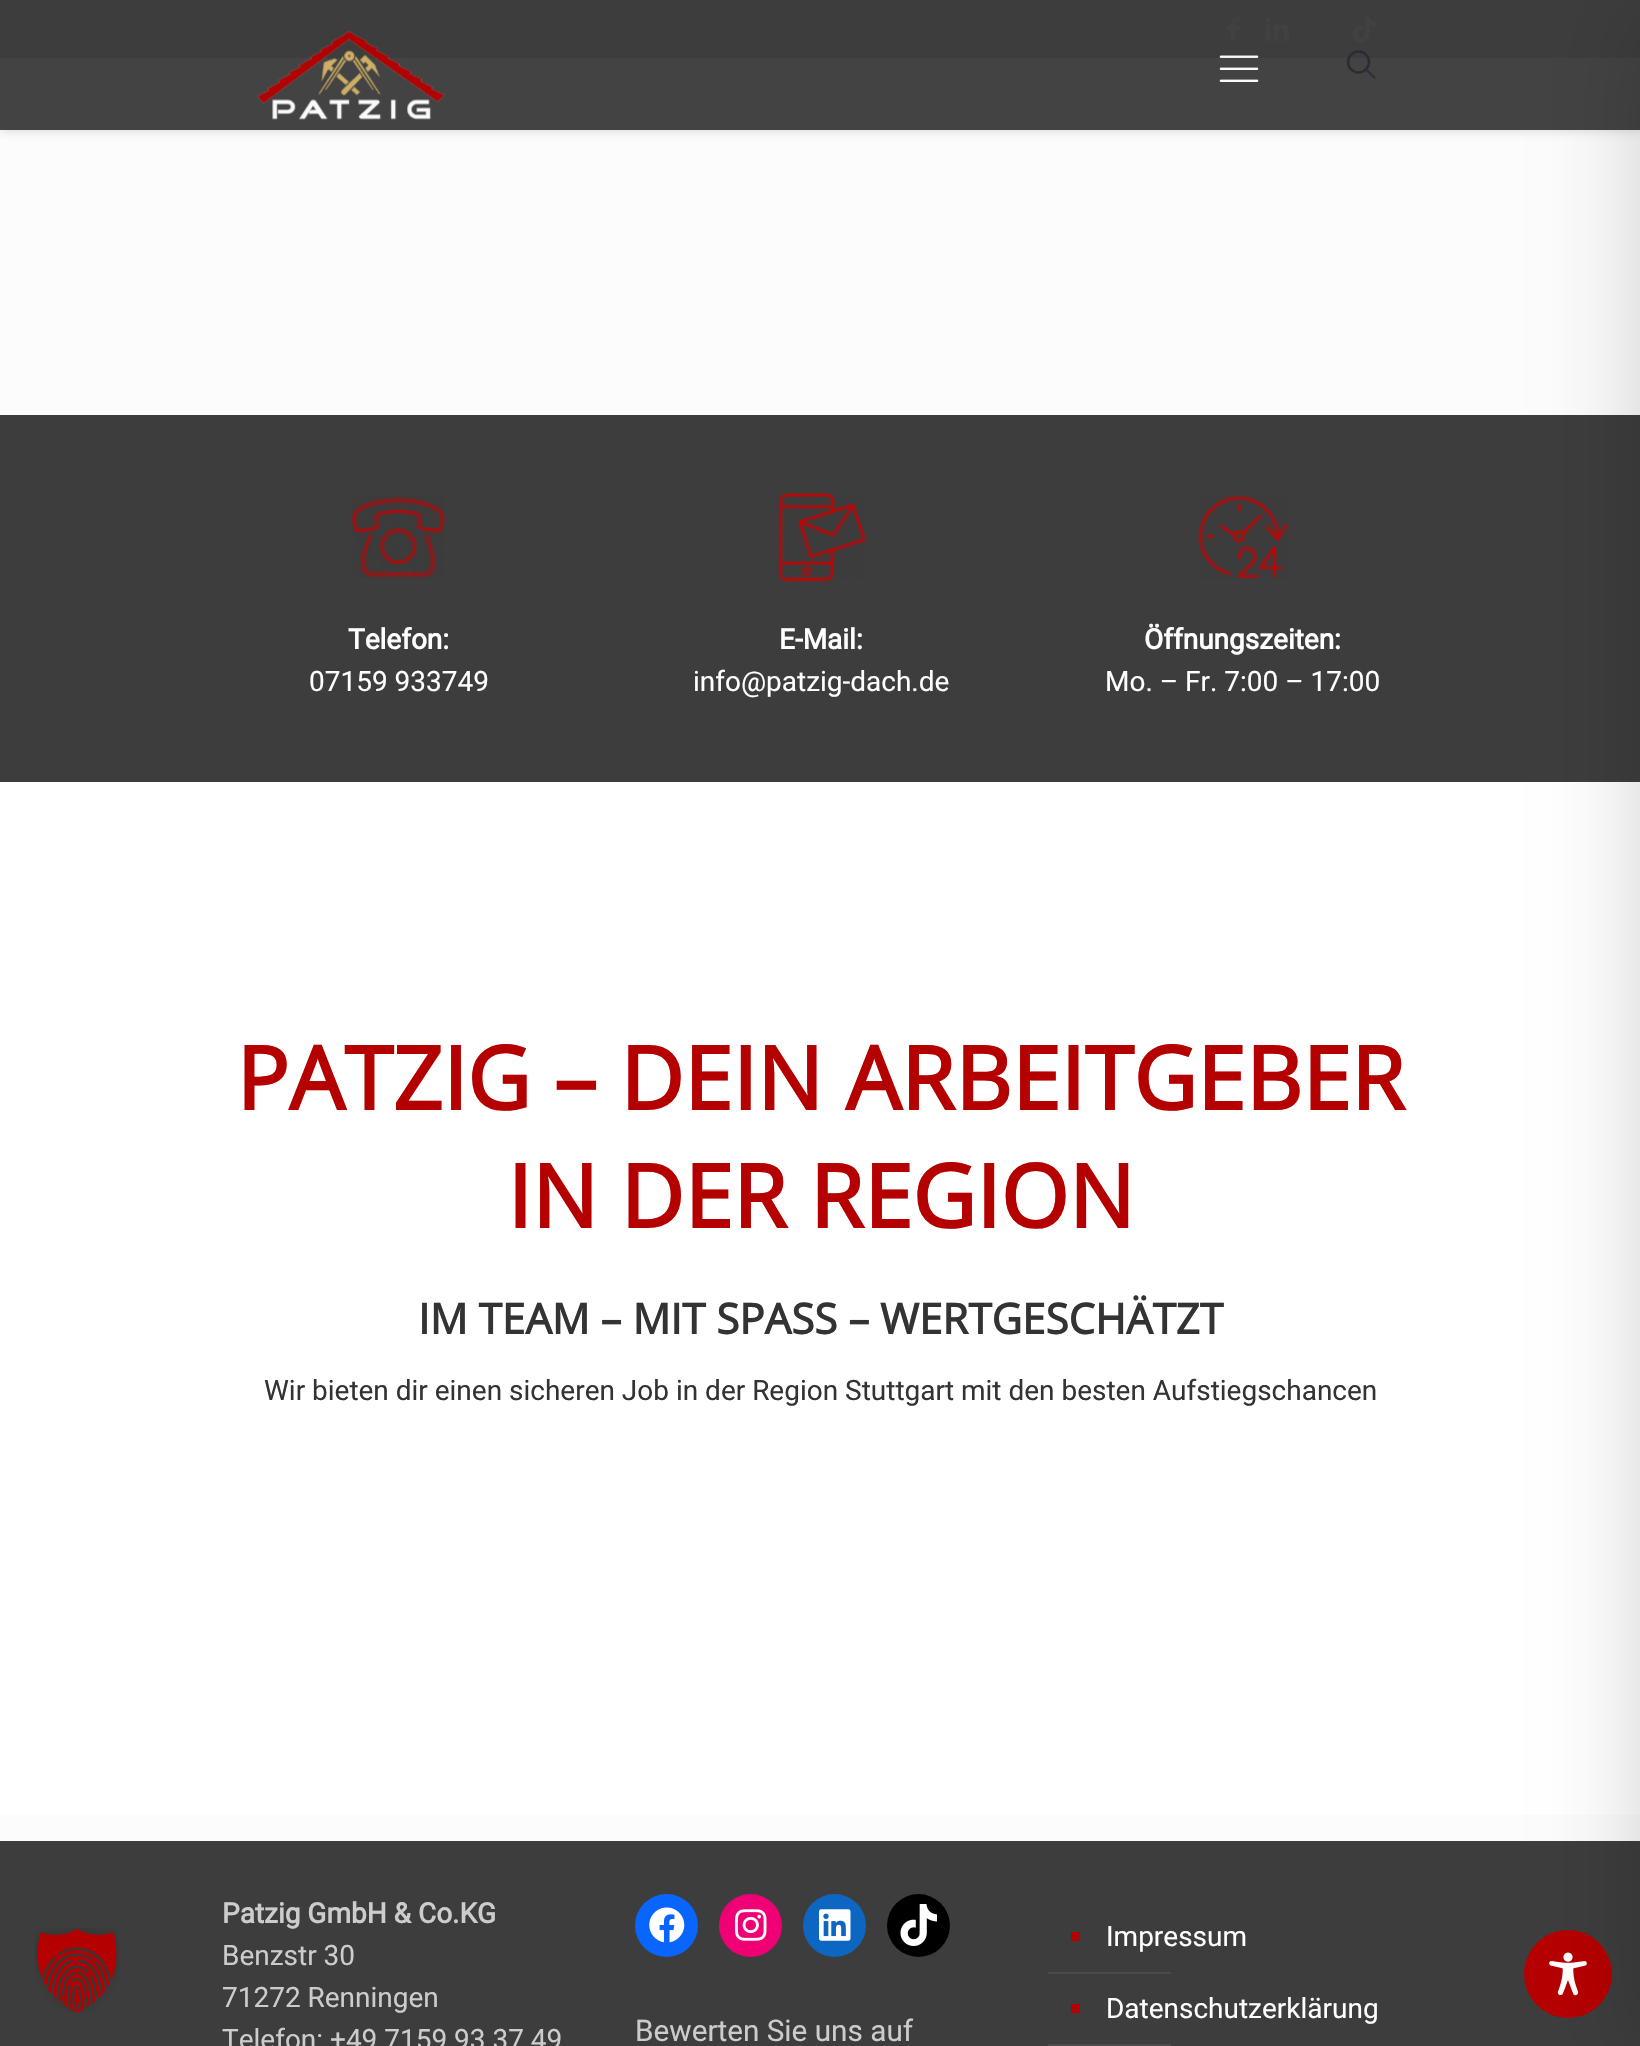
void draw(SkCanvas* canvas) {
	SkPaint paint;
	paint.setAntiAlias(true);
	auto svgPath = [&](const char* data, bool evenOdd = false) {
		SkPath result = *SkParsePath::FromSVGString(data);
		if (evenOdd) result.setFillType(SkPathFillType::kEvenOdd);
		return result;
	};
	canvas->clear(0xfffcfcfc);
	paint.setColor(0xff3d3d3d);
	canvas->drawRect(SkRect::MakeXYWH(0, 1841, 1640, 205), paint);
	canvas->drawImageRect(SkImages::DeferredFromEncodedData(SkData::MakeFromFileName("img1.png")), SkRect::MakeXYWH(35, 1928, 84, 85), SkSamplingOptions());
	paint.setColor(0xff292b33);
	canvas->drawRect(SkRect::MakeXYWH(0, 0, 1640, 58), paint);
	canvas->drawImageRect(SkImages::DeferredFromEncodedData(SkData::MakeFromFileName("img2.png")), SkRect::MakeXYWH(1226, 17, 14, 25), SkSamplingOptions());
	canvas->drawImageRect(SkImages::DeferredFromEncodedData(SkData::MakeFromFileName("img3.png")), SkRect::MakeXYWH(1265, 17, 24, 24), SkSamplingOptions());
	canvas->drawImageRect(SkImages::DeferredFromEncodedData(SkData::MakeFromFileName("img4.png")), SkRect::MakeXYWH(1352, 16, 24, 27), SkSamplingOptions());
	canvas->save();
	canvas->clipPath(svgPath("M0 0H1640V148H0ZM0 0H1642V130H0Z", true), true);
	paint.setColor(0x1a080808);
	paint.setMaskFilter(SkMaskFilter::MakeBlur(kNormal_SkBlurStyle, 4.5));
	canvas->drawRect(SkRect::MakeXYWH(0, 4, 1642, 129), paint);
	paint.setMaskFilter(nullptr);
	canvas->restore();
	paint.setColor(0xf73d3d3d);
	canvas->drawRect(SkRect::MakeXYWH(0, 0, 1640, 130), paint);
	canvas->drawImageRect(SkImages::DeferredFromEncodedData(SkData::MakeFromFileName("img5.png")), SkRect::MakeXYWH(257, 31, 188, 89), SkSamplingOptions());
	canvas->drawImageRect(SkImages::DeferredFromEncodedData(SkData::MakeFromFileName("img6.png")), SkRect::MakeXYWH(1219, 55, 40, 27), SkSamplingOptions());
	paint.setStroke(true);
	paint.setStrokeWidth(2.6);
	paint.setColor(0xf7292b33);
	canvas->drawCircle(1358.5, 62, 10.5, paint);
	paint.setColor(0xff2f3139);
	canvas->drawPath(svgPath("M1366 69.5L1375 78"), paint);
	paint.setStroke(false);
	paint.setColor(0xff3d3d3d);
	canvas->drawRect(SkRect::MakeXYWH(0, 415, 1640, 367), paint);
	canvas->drawImageRect(SkImages::DeferredFromEncodedData(SkData::MakeFromFileName("img7.png")), SkRect::MakeXYWH(351, 496, 94, 82), SkSamplingOptions());
	SkFont f1(fontMgr->matchFamilyStyle("Roboto", SkFontStyle::Bold()), 28);
	f1.setSubpixel(true);
	paint.setColor(0xffffffff);
	canvas->drawString("Telefon:", 348, 649, f1, paint);
	SkFont f2(fontMgr->matchFamilyStyle("Roboto", SkFontStyle::Normal()), 28);
	f2.setSubpixel(true);
	canvas->drawString("07159 933749", 309, 691, f2, paint);
	canvas->drawImageRect(SkImages::DeferredFromEncodedData(SkData::MakeFromFileName("img8.png")), SkRect::MakeXYWH(778, 493, 89, 88), SkSamplingOptions());
	canvas->drawString("E-Mail:", 779, 649, f1, paint);
	canvas->drawString("info@patzig-dach.de", 693, 691, f2, paint);
	canvas->drawImageRect(SkImages::DeferredFromEncodedData(SkData::MakeFromFileName("img9.png")), SkRect::MakeXYWH(1198, 495, 91, 84), SkSamplingOptions());
	canvas->drawString("Öffnungszeiten:", 1144, 649, f1, paint);
	canvas->drawString("Mo. – Fr. 7:00 – 17:00", 1105, 691, f2, paint);
	canvas->drawRect(SkRect::MakeXYWH(0, 782, 1640, 1033), paint);
	SkFont f3(fontMgr->matchFamilyStyle("Open Sans", SkFontStyle::Bold()), 87.5);
	f3.setSubpixel(true);
	paint.setColor(0xffb50000);
	canvas->drawString("PATZIG – DEIN ARBEITGEBER", 236, 1110, f3, paint);
	canvas->drawString("IN DER REGION", 507, 1228, f3, paint);
	SkFont f4(fontMgr->matchFamilyStyle("Open Sans", SkFontStyle::Bold()), 42);
	f4.setSubpixel(true);
	paint.setColor(0xff333333);
	canvas->drawString("IM TEAM – MIT SPASS – WERTGESCHÄTZT", 418, 1334, f4, paint);
	canvas->drawString("Wir bieten dir einen sicheren Job in der Region Stuttgart mit den besten Aufstiegschancen", 264, 1400, f2, paint);
	paint.setColor(0xffcccccc);
	canvas->drawString("Patzig GmbH & Co.KG", 222, 1923, f1, paint);
	canvas->drawString("Benzstr 30", 222, 1965, f2, paint);
	canvas->drawString("71272 Renningen", 222, 2007, f2, paint);
	canvas->drawString("Telefon: +49 7159 93 37 49", 222, 2049, f2, paint);
	paint.setColor(0xffb50000);
	canvas->drawRect(SkRect::MakeXYWH(1071, 1932, 9, 9), paint);
	paint.setColor(0xffffffff);
	canvas->drawString("Impressum", 1106, 1946, f2, paint);
	paint.setColor(0xff4b4b4b);
	canvas->drawRect(SkRect::MakeXYWH(1048, 1972, 123, 2), paint);
	paint.setColor(0xffb50000);
	canvas->drawRect(SkRect::MakeXYWH(1071, 2004, 9, 9), paint);
	paint.setColor(0xffffffff);
	canvas->drawString("Datenschutzerklärung", 1106, 2018, f2, paint);
	paint.setColor(0xff4b4b4b);
	canvas->drawRect(SkRect::MakeXYWH(1048, 2044, 123, 2), paint);
	paint.setColor(0xff0866ff);
	canvas->drawCircle(666.5, 1925.5, 31.5, paint);
	canvas->drawImageRect(SkImages::DeferredFromEncodedData(SkData::MakeFromFileName("img10.png")), SkRect::MakeXYWH(649, 1907, 36, 36), SkSamplingOptions());
	paint.setColor(0xfff00075);
	canvas->drawCircle(750.5, 1925.5, 31.5, paint);
	canvas->drawImageRect(SkImages::DeferredFromEncodedData(SkData::MakeFromFileName("img11.png")), SkRect::MakeXYWH(735, 1909, 32, 32), SkSamplingOptions());
	paint.setColor(0xff0d66c2);
	canvas->drawCircle(834.5, 1925.5, 31.5, paint);
	canvas->drawImageRect(SkImages::DeferredFromEncodedData(SkData::MakeFromFileName("img12.png")), SkRect::MakeXYWH(819, 1909, 32, 32), SkSamplingOptions());
	paint.setColor(0xff000000);
	canvas->drawCircle(918.5, 1925.5, 31.5, paint);
	canvas->drawImageRect(SkImages::DeferredFromEncodedData(SkData::MakeFromFileName("img13.png")), SkRect::MakeXYWH(900, 1904, 37, 42), SkSamplingOptions());
	SkFont f5(fontMgr->matchFamilyStyle("Roboto", SkFontStyle::Normal()), 29.75);
	f5.setSubpixel(true);
	paint.setColor(0xffcccccc);
	canvas->drawString("Bewerten Sie uns auf", 635, 2041, f5, paint);
	paint.setColor(0xffb50000);
	canvas->drawCircle(1568, 1974, 44, paint);
	canvas->drawImageRect(SkImages::DeferredFromEncodedData(SkData::MakeFromFileName("img14.png")), SkRect::MakeXYWH(1549, 1952, 38, 44), SkSamplingOptions());
	paint.setColor(0x33000000);
	paint.setMaskFilter(SkMaskFilter::MakeBlur(kNormal_SkBlurStyle, 52.5));
	canvas->drawRect(SkRect::MakeXYWH(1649, 18, 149, 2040), paint);
	paint.setMaskFilter(nullptr);
}
